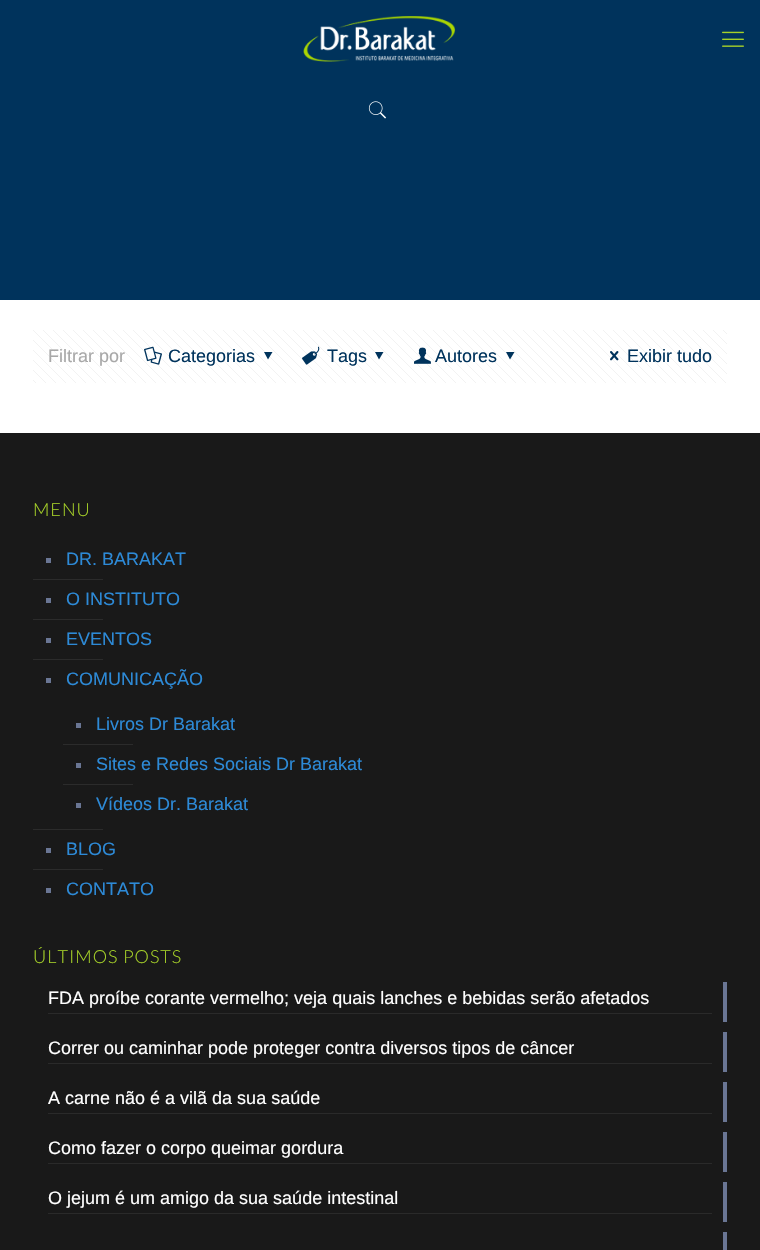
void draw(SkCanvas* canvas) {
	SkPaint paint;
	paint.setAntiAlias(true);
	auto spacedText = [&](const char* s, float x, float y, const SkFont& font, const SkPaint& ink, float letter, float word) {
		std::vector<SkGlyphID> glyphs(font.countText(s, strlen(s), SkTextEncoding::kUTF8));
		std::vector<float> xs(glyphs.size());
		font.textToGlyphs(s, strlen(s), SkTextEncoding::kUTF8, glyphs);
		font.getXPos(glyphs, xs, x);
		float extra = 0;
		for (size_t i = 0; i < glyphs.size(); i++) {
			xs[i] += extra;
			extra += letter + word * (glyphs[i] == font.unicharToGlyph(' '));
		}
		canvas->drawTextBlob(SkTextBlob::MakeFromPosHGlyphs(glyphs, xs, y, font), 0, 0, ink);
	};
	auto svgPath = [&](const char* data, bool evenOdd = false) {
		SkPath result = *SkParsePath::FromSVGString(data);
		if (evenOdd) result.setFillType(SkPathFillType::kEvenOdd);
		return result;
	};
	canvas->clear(0xffffffff);
	paint.setColor(0xff00335c);
	canvas->drawRect(SkRect::MakeXYWH(0, 0, 760, 300), paint);
	canvas->drawImageRect(SkImages::DeferredFromEncodedData(SkData::MakeFromFileName("img1.png")), SkRect::MakeXYWH(303, 16, 153, 46), SkSamplingOptions());
	canvas->drawImageRect(SkImages::DeferredFromEncodedData(SkData::MakeFromFileName("img2.png")), SkRect::MakeXYWH(722, 31, 22, 16), SkSamplingOptions());
	canvas->drawImageRect(SkImages::DeferredFromEncodedData(SkData::MakeFromFileName("img3.png")), SkRect::MakeXYWH(368, 101, 19, 18), SkSamplingOptions());
	canvas->drawImageRect(SkImages::DeferredFromEncodedData(SkData::MakeFromFileName("img4.png")), SkRect::MakeXYWH(33, 330, 694, 53), SkSamplingOptions());
	SkFont f1(fontMgr->matchFamilyStyle("Liberation Sans", SkFontStyle::Normal()), 18);
	f1.setSubpixel(true);
	paint.setColor(0xffa8a8a8);
	canvas->drawString("Filtrar por", 48, 362, f1, paint);
	canvas->drawImageRect(SkImages::DeferredFromEncodedData(SkData::MakeFromFileName("img5.png")), SkRect::MakeXYWH(144, 346, 18, 19), SkSamplingOptions());
	paint.setColor(0xff00335c);
	canvas->drawString("Categorias", 168, 362, f1, paint);
	canvas->drawPath(svgPath("M272.5 352L268 359.5L264 352Z"), paint);
	canvas->drawImageRect(SkImages::DeferredFromEncodedData(SkData::MakeFromFileName("img6.png")), SkRect::MakeXYWH(302, 346, 18, 19), SkSamplingOptions());
	canvas->drawString("Tags", 327, 362, f1, paint);
	canvas->drawPath(svgPath("M383.5 352L379 359.5L375 352Z"), paint);
	canvas->drawImageRect(SkImages::DeferredFromEncodedData(SkData::MakeFromFileName("img7.png")), SkRect::MakeXYWH(414, 347, 17, 17), SkSamplingOptions());
	canvas->drawString("Autores", 435, 362, f1, paint);
	canvas->drawPath(svgPath("M514.5 352L510 359.5L506 352Z"), paint);
	canvas->drawImageRect(SkImages::DeferredFromEncodedData(SkData::MakeFromFileName("img8.png")), SkRect::MakeXYWH(610, 351, 9, 10), SkSamplingOptions());
	canvas->drawString("Exibir tudo", 627, 362, f1, paint);
	paint.setColor(0xff191919);
	canvas->drawRect(SkRect::MakeXYWH(0, 433, 760, 817), paint);
	SkFont f2(fontMgr->matchFamilyStyle("Lato", SkFontStyle(300, SkFontStyle::kNormal_Width, SkFontStyle::kUpright_Slant)), 18);
	f2.setSubpixel(true);
	paint.setColor(0xffa6d128);
	spacedText("MENU", 33, 516, f2, paint, 1, 0);
	paint.setColor(0xff6a7694);
	canvas->drawRect(SkRect::MakeXYWH(46, 558, 5, 5), paint);
	paint.setColor(0xff2d8ad7);
	canvas->drawString("DR. BARAKAT", 66, 565, f1, paint);
	paint.setColor(0xff2b2b2b);
	canvas->drawRect(SkRect::MakeXYWH(33, 579, 70, 1), paint);
	paint.setColor(0xff6a7694);
	canvas->drawRect(SkRect::MakeXYWH(46, 598, 5, 5), paint);
	paint.setColor(0xff2d8ad7);
	canvas->drawString("O INSTITUTO", 66, 605, f1, paint);
	paint.setColor(0xff2b2b2b);
	canvas->drawRect(SkRect::MakeXYWH(33, 619, 70, 1), paint);
	paint.setColor(0xff6a7694);
	canvas->drawRect(SkRect::MakeXYWH(46, 638, 5, 5), paint);
	paint.setColor(0xff2d8ad7);
	canvas->drawString("EVENTOS", 66, 645, f1, paint);
	paint.setColor(0xff2b2b2b);
	canvas->drawRect(SkRect::MakeXYWH(33, 659, 70, 1), paint);
	paint.setColor(0xff6a7694);
	canvas->drawRect(SkRect::MakeXYWH(46, 678, 5, 5), paint);
	paint.setColor(0xff2d8ad7);
	canvas->drawString("COMUNICAÇÃO", 66, 685, f1, paint);
	paint.setColor(0xff6a7694);
	canvas->drawRect(SkRect::MakeXYWH(76, 723, 5, 5), paint);
	paint.setColor(0xff2d8ad7);
	canvas->drawString("Livros Dr Barakat", 96, 730, f1, paint);
	paint.setColor(0xff2b2b2b);
	canvas->drawRect(SkRect::MakeXYWH(63, 744, 70, 1), paint);
	paint.setColor(0xff6a7694);
	canvas->drawRect(SkRect::MakeXYWH(76, 763, 5, 5), paint);
	paint.setColor(0xff2d8ad7);
	canvas->drawString("Sites e Redes Sociais Dr Barakat", 96, 770, f1, paint);
	paint.setColor(0xff2b2b2b);
	canvas->drawRect(SkRect::MakeXYWH(63, 784, 70, 1), paint);
	paint.setColor(0xff6a7694);
	canvas->drawRect(SkRect::MakeXYWH(76, 803, 5, 5), paint);
	paint.setColor(0xff2d8ad7);
	canvas->drawString("Vídeos Dr. Barakat", 96, 810, f1, paint);
	paint.setColor(0xff2b2b2b);
	canvas->drawRect(SkRect::MakeXYWH(33, 829, 70, 1), paint);
	paint.setColor(0xff6a7694);
	canvas->drawRect(SkRect::MakeXYWH(46, 848, 5, 5), paint);
	paint.setColor(0xff2d8ad7);
	canvas->drawString("BLOG", 66, 855, f1, paint);
	paint.setColor(0xff2b2b2b);
	canvas->drawRect(SkRect::MakeXYWH(33, 869, 70, 1), paint);
	paint.setColor(0xff6a7694);
	canvas->drawRect(SkRect::MakeXYWH(46, 888, 5, 5), paint);
	paint.setColor(0xff2d8ad7);
	canvas->drawString("CONTATO", 66, 895, f1, paint);
	paint.setColor(0xffa6d128);
	spacedText("ÚLTIMOS POSTS", 33, 963, f2, paint, 1, 0);
	paint.setColor(0xff2a2a2a);
	canvas->drawRect(SkRect::MakeXYWH(48, 1013, 664, 1), paint);
	paint.setColor(0xffffffff);
	canvas->drawString("FDA proíbe corante vermelho; veja quais lanches e bebidas serão afetados", 48, 1004, f1, paint);
	paint.setColor(0xff6a7694);
	canvas->drawRect(SkRect::MakeXYWH(723, 982, 4, 40), paint);
	paint.setColor(0xff2a2a2a);
	canvas->drawRect(SkRect::MakeXYWH(48, 1063, 664, 1), paint);
	paint.setColor(0xffffffff);
	canvas->drawString("Correr ou caminhar pode proteger contra diversos tipos de câncer", 48, 1054, f1, paint);
	paint.setColor(0xff6a7694);
	canvas->drawRect(SkRect::MakeXYWH(723, 1032, 4, 40), paint);
	paint.setColor(0xff2a2a2a);
	canvas->drawRect(SkRect::MakeXYWH(48, 1113, 664, 1), paint);
	paint.setColor(0xffffffff);
	canvas->drawString("A carne não é a vilã da sua saúde", 48, 1104, f1, paint);
	paint.setColor(0xff6a7694);
	canvas->drawRect(SkRect::MakeXYWH(723, 1082, 4, 40), paint);
	paint.setColor(0xff2a2a2a);
	canvas->drawRect(SkRect::MakeXYWH(48, 1163, 664, 1), paint);
	paint.setColor(0xffffffff);
	canvas->drawString("Como fazer o corpo queimar gordura", 48, 1154, f1, paint);
	paint.setColor(0xff6a7694);
	canvas->drawRect(SkRect::MakeXYWH(723, 1132, 4, 40), paint);
	paint.setColor(0xff2a2a2a);
	canvas->drawRect(SkRect::MakeXYWH(48, 1213, 664, 1), paint);
	paint.setColor(0xffffffff);
	canvas->drawString("O jejum é um amigo da sua saúde intestinal", 48, 1204, f1, paint);
	paint.setColor(0xff6a7694);
	canvas->drawRect(SkRect::MakeXYWH(723, 1182, 4, 40), paint);
	canvas->drawRect(SkRect::MakeXYWH(723, 1232, 4, 18), paint);
}
